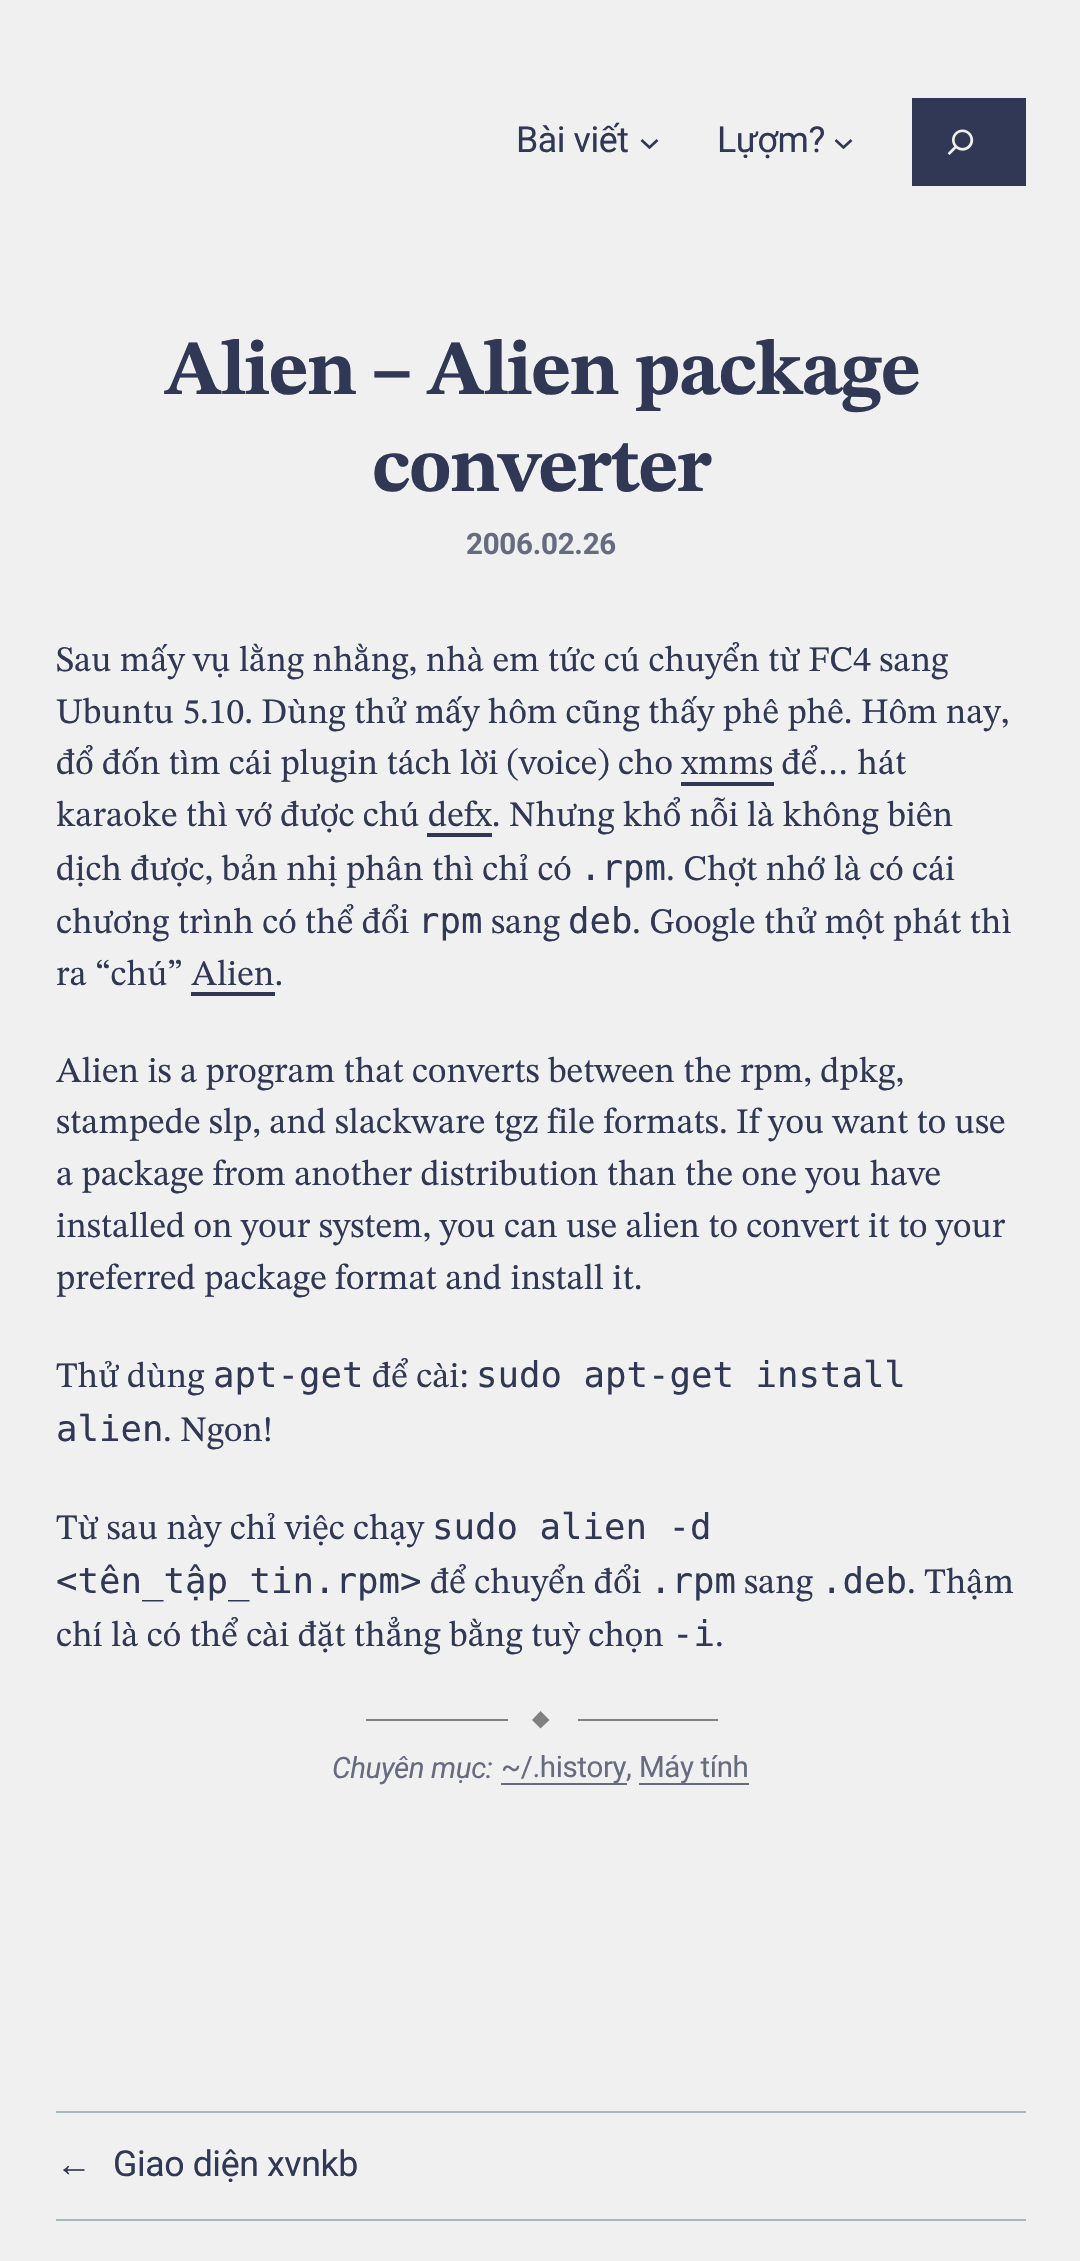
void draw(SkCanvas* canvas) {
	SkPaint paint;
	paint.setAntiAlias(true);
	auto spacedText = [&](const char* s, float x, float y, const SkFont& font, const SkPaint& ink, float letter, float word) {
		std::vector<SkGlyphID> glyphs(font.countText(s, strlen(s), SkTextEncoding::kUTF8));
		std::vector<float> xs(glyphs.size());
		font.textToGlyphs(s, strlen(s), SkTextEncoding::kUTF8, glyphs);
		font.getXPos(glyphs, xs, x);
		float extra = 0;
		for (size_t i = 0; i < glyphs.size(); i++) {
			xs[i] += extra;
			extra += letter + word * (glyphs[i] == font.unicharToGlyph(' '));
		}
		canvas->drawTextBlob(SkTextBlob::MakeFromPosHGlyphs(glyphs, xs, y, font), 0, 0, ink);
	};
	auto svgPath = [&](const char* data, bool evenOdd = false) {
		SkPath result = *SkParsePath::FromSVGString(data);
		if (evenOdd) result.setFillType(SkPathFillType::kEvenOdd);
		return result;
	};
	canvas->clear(0xfff0f0f0);
	SkFont f1(fontMgr->matchFamilyStyle("Roboto", SkFontStyle::Normal()), 35.7);
	f1.setSubpixel(true);
	paint.setColor(0xff313855);
	spacedText("Bài viết", 516, 152, f1, paint, -0.4, 0);
	paint.setStroke(true);
	paint.setStrokeWidth(2.7);
	canvas->drawPath(svgPath("M641.5 140L649.5 147.5L657.5 140"), paint);
	paint.setStroke(false);
	spacedText("Lựợm?", 717, 152, f1, paint, -0.4, 0);
	paint.setStroke(true);
	canvas->drawPath(svgPath("M835.5 140L843.5 147.5L851.5 140"), paint);
	paint.setStroke(false);
	canvas->drawRect(SkRect::MakeXYWH(912, 98, 114, 88), paint);
	canvas->drawImageRect(SkImages::DeferredFromEncodedData(SkData::MakeFromFileName("img1.png")), SkRect::MakeXYWH(947, 129, 27, 26), SkSamplingOptions());
	SkFont f2(fontMgr->matchFamilyStyle("STIX Two Text", SkFontStyle::Bold()), 77.75);
	f2.setSubpixel(true);
	spacedText("Alien – Alien package", 164, 394, f2, paint, -1.55, 0);
	spacedText("converter", 372, 491, f2, paint, -1.55, 0);
	SkFont f3(fontMgr->matchFamilyStyle("Roboto", SkFontStyle::Bold()), 29.5);
	f3.setSubpixel(true);
	paint.setColor(0xff666b80);
	spacedText("2006.02.26", 466, 554, f3, paint, -0.25, 0);
	SkFont f4(fontMgr->matchFamilyStyle("STIX Two Text", SkFontStyle::Normal()), 35.7);
	f4.setSubpixel(true);
	paint.setColor(0xff313855);
	canvas->drawString("Sau mấy vụ lằng nhằng, nhà em tức cú chuyển từ FC4 sang", 56, 671, f4, paint);
	canvas->drawString("Ubuntu 5.10. Dùng thử mấy hôm cũng thấy phê phê. Hôm nay,", 56, 723, f4, paint);
	canvas->drawString("đổ đốn tìm cái plugin tách lời (voice) cho", 56, 774, f4, paint);
	canvas->drawString("xmms để… hát", 681, 774, f4, paint);
	canvas->drawRect(SkRect::MakeXYWH(681, 782, 93, 4), paint);
	canvas->drawString("karaoke thì vớ được chú defx. Nhưng khổ nỗi là không biên", 56, 826, f4, paint);
	canvas->drawRect(SkRect::MakeXYWH(427, 833, 65, 4), paint);
	canvas->drawString("dịch được, bản nhị phân thì chỉ có", 56, 880, f4, paint);
	SkFont f5(fontMgr->matchFamilyStyle("DejaVu Sans Mono", SkFontStyle::Normal()), 35.7);
	f5.setSubpixel(true);
	canvas->drawString(".rpm", 580, 880, f5, paint);
	canvas->drawString(". Chợt nhớ là có cái", 666, 880, f4, paint);
	canvas->drawString("chương trình có thể đổi", 56, 933, f4, paint);
	canvas->drawString("rpm", 418, 933, f5, paint);
	canvas->drawString("sang", 491, 933, f4, paint);
	canvas->drawString("deb", 568, 933, f5, paint);
	canvas->drawString(". Google thử một phát thì", 632, 933, f4, paint);
	canvas->drawString("ra “chú” Alien.", 56, 985, f4, paint);
	canvas->drawRect(SkRect::MakeXYWH(191, 992, 84, 4), paint);
	canvas->drawString("Alien is a program that converts between the rpm, dpkg,", 56, 1082, f4, paint);
	canvas->drawString("stampede slp, and slackware tgz file formats. If you want to use", 56, 1133, f4, paint);
	canvas->drawString("a package from another distribution than the one you have", 56, 1185, f4, paint);
	canvas->drawString("installed on your system, you can use alien to convert it to your", 56, 1237, f4, paint);
	canvas->drawString("preferred package format and install it.", 56, 1289, f4, paint);
	canvas->drawString("Thử dùng", 56, 1387, f4, paint);
	canvas->drawString("apt-get", 213, 1387, f5, paint);
	canvas->drawString("để cài:", 372, 1387, f4, paint);
	canvas->drawString("sudo apt-get install", 476, 1387, f5, paint);
	canvas->drawString("alien", 56, 1441, f5, paint);
	canvas->drawString(". Ngon!", 163, 1441, f4, paint);
	canvas->drawString("Từ sau này chỉ việc chạy", 56, 1539, f4, paint);
	canvas->drawString("sudo alien -d", 432, 1539, f5, paint);
	canvas->drawString("<tên_tập_tin.rpm>", 56, 1593, f5, paint);
	canvas->drawString("để chuyển đổi", 430, 1593, f4, paint);
	canvas->drawString(".rpm", 650, 1593, f5, paint);
	canvas->drawString("sang", 744, 1593, f4, paint);
	canvas->drawString(".deb", 821, 1593, f5, paint);
	canvas->drawString(". Thậm", 907, 1593, f4, paint);
	canvas->drawString("chí là có thể cài đặt thẳng bằng tuỳ chọn", 56, 1646, f4, paint);
	canvas->drawString("-i", 672, 1646, f5, paint);
	canvas->drawString(".", 715, 1646, f4, paint);
	paint.setColor(0xff808080);
	canvas->drawRect(SkRect::MakeXYWH(366, 1719, 142, 2), paint);
	canvas->drawRect(SkRect::MakeXYWH(578, 1719, 140, 2), paint);
	canvas->drawPath(svgPath("M540.5 1711L549.5 1720L540.5 1728.5L532 1720Z"), paint);
	SkFont f6(fontMgr->matchFamilyStyle("Roboto", SkFontStyle::Italic()), 29.5);
	f6.setSubpixel(true);
	paint.setColor(0xff666b80);
	spacedText("Chuyên mục:", 332, 1778, f6, paint, -0.4, 0);
	canvas->drawRect(SkRect::MakeXYWH(501, 1783, 126, 2), paint);
	SkFont f7(fontMgr->matchFamilyStyle("Roboto", SkFontStyle::Normal()), 29.5);
	f7.setSubpixel(true);
	spacedText("~/.history,", 501, 1777, f7, paint, -0.4, 0);
	canvas->drawRect(SkRect::MakeXYWH(639, 1783, 110, 2), paint);
	spacedText("Máy tính", 639, 1777, f7, paint, -0.4, 0);
	paint.setColor(0xffa7b7bc);
	canvas->drawRect(SkRect::MakeXYWH(56, 2111, 970, 2), paint);
	canvas->drawRect(SkRect::MakeXYWH(56, 2219, 970, 2), paint);
	SkFont f8(fontMgr->matchFamilyStyle("Liberation Sans", SkFontStyle::Normal()), 35.7);
	f8.setSubpixel(true);
	paint.setColor(0xff313855);
	spacedText("←", 56, 2176, f8, paint, -0.4, 0);
	spacedText("Giao diện xvnkb", 113, 2176, f1, paint, -0.4, 0);
}
